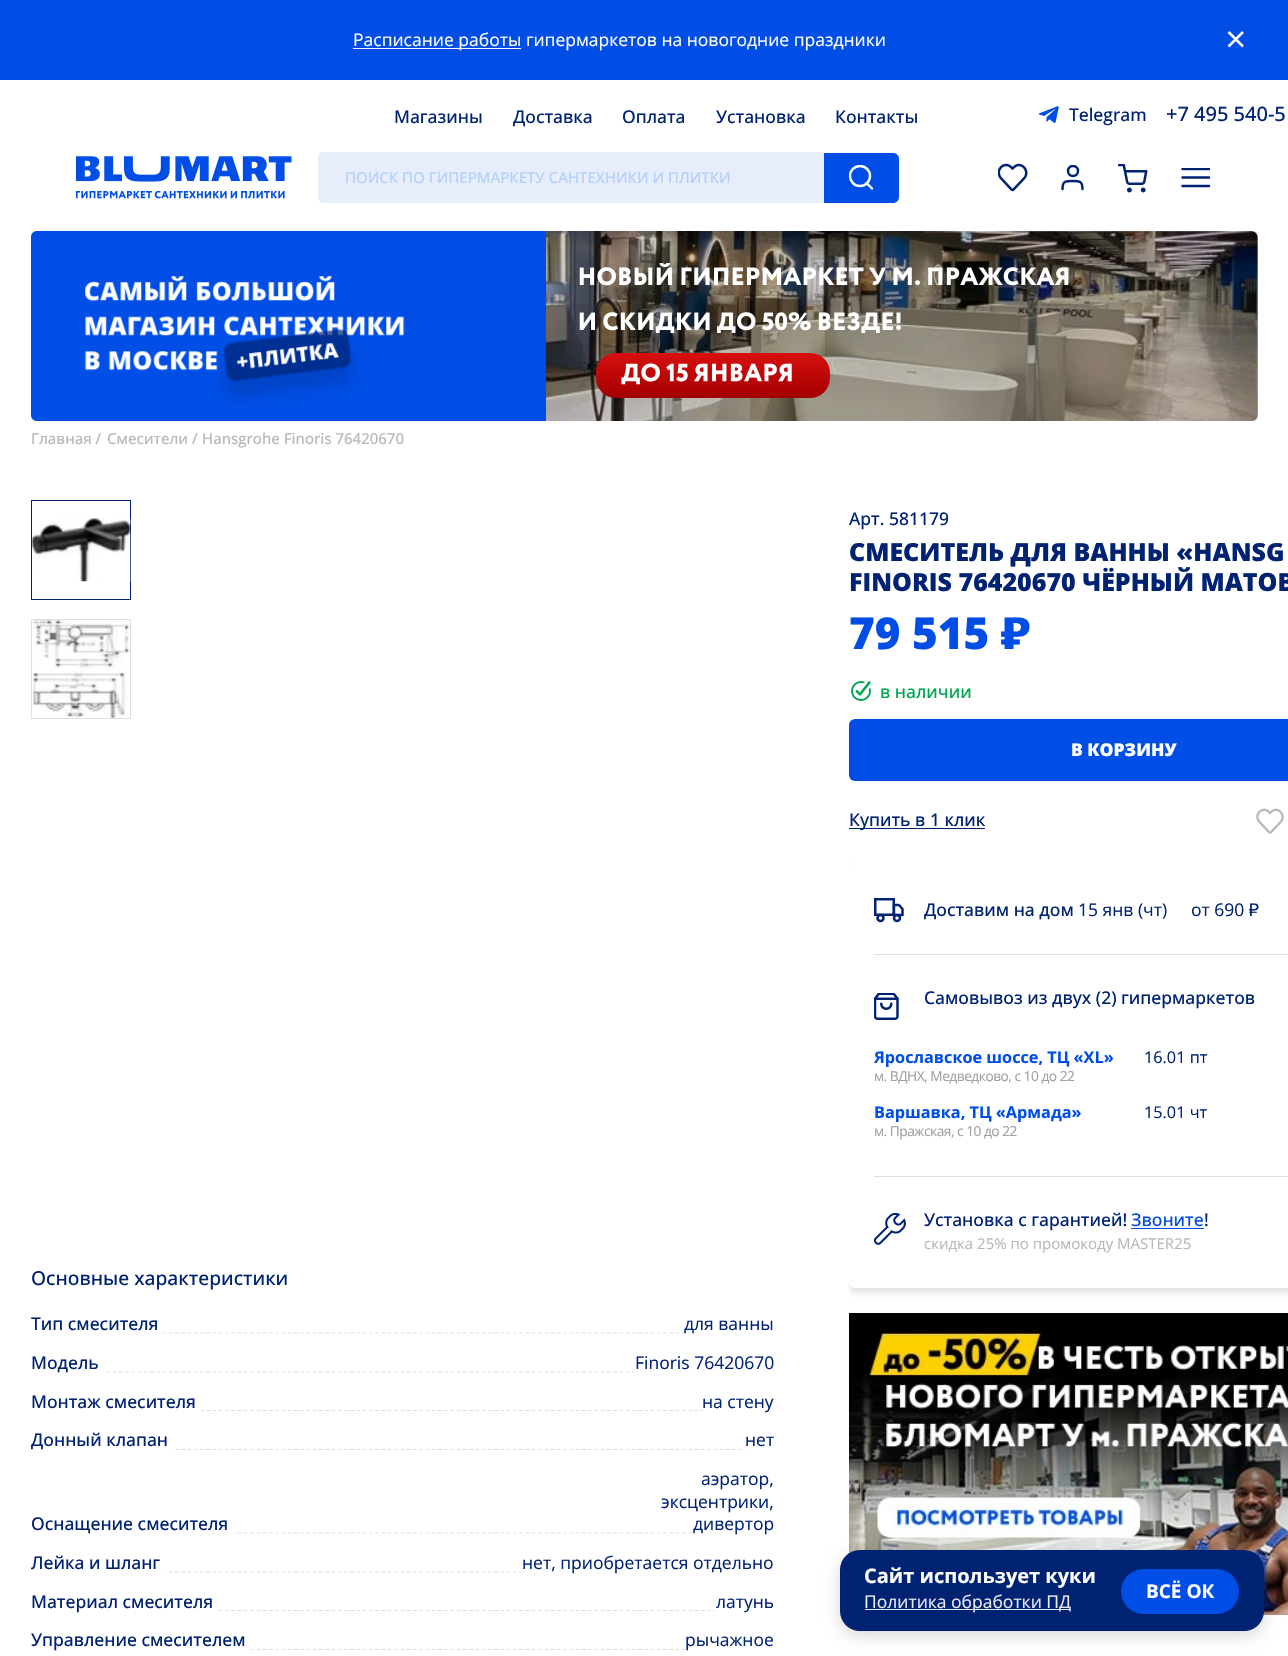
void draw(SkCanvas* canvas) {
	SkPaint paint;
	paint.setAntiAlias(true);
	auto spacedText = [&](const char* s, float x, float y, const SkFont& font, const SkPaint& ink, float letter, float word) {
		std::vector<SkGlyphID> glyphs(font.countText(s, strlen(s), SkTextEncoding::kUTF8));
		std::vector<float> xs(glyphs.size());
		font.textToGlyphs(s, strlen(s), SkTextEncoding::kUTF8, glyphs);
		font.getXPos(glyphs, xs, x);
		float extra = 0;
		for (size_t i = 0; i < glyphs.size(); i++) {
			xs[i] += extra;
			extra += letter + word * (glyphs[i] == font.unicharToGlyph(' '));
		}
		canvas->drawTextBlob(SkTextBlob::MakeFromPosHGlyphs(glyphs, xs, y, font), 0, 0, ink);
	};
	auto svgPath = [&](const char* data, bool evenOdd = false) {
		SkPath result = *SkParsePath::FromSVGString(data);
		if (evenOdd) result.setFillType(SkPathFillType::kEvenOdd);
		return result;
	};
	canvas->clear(0xffffffff);
	paint.setColor(0xff004ee6);
	canvas->drawRect(SkRect::MakeXYWH(0, 0, 1288, 80), paint);
	paint.setColor(0xffffffff);
	canvas->drawRect(SkRect::MakeXYWH(353, 48, 168, 1), paint);
	SkFont f1(fontMgr->matchFamilyStyle("Open Sans", SkFontStyle::Normal()), 17.5);
	f1.setSubpixel(true);
	canvas->drawString("Расписание работы гипермаркетов на новогодние праздники", 353, 46, f1, paint);
	paint.setStroke(true);
	paint.setStrokeWidth(2.5);
	canvas->drawPath(svgPath("M1228.5 46.5L1243 32M1228.5 32L1243 46.5"), paint);
	SkFont f2(fontMgr->matchFamilyStyle("Open Sans", SkFontStyle(500, SkFontStyle::kNormal_Width, SkFontStyle::kUpright_Slant)), 17.5);
	f2.setSubpixel(true);
	paint.setStroke(false);
	paint.setColor(0xff002273);
	canvas->drawString("Магазины", 394, 123, f2, paint);
	canvas->drawString("Доставка", 513, 123, f2, paint);
	canvas->drawString("Оплата", 622, 123, f2, paint);
	canvas->drawString("Установка", 716, 123, f2, paint);
	canvas->drawString("Контакты", 835, 123, f2, paint);
	canvas->drawImageRect(SkImages::DeferredFromEncodedData(SkData::MakeFromFileName("img1.png")), SkRect::MakeXYWH(1039, 106, 20, 17), SkSamplingOptions());
	canvas->drawString("Telegram", 1069, 121, f2, paint);
	SkFont f3(fontMgr->matchFamilyStyle("Open Sans", SkFontStyle(500, SkFontStyle::kNormal_Width, SkFontStyle::kUpright_Slant)), 20);
	f3.setSubpixel(true);
	canvas->drawString("+7 495 540-5", 1166, 121, f3, paint);
	canvas->drawImageRect(SkImages::DeferredFromEncodedData(SkData::MakeFromFileName("img2.png")), SkRect::MakeXYWH(75, 156, 217, 43), SkSamplingOptions());
	paint.setColor(0xffe7edfa);
	canvas->drawPath(svgPath("M324 153H824V203H324C320.5 203 318 200.5 318 197V159C318 155.5 320.5 153 324 153Z"), paint);
	canvas->drawPath(svgPath("M324 152H824V202H324C320 202 318 200 318 196V159C318 155 320 152 324 152ZM324 155H824V200H324C322 200 320 198 320 196V159C320 157 322 155 324 155Z", true), paint);
	SkFont f4(fontMgr->matchFamilyStyle("Open Sans", SkFontStyle(500, SkFontStyle::kNormal_Width, SkFontStyle::kUpright_Slant)), 15);
	f4.setSubpixel(true);
	paint.setColor(0xffb4d1fc);
	canvas->drawString("ПОИСК ПО ГИПЕРМАРКЕТУ САНТЕХНИКИ И ПЛИТКИ", 345, 183, f4, paint);
	paint.setColor(0xff004ee6);
	canvas->drawPath(svgPath("M824 153H893C896.5 153 899 155.5 899 159V197C899 200.5 896.5 203 893 203H824Z"), paint);
	canvas->save();
	canvas->clipRect(SkRect::MakeXYWH(849, 165, 25, 25));
	paint.setStroke(true);
	paint.setStrokeWidth(2.4);
	paint.setColor(0xffffffff);
	canvas->drawCircle(860, 176, 10, paint);
	canvas->restore();
	paint.setStrokeCap(SkPaint::kRound_Cap);
	paint.setStrokeJoin(SkPaint::kRound_Join);
	canvas->drawPath(svgPath("M872 188.5L866.5 183"), paint);
	canvas->drawImageRect(SkImages::DeferredFromEncodedData(SkData::MakeFromFileName("img3.png")), SkRect::MakeXYWH(998, 163, 30, 29), SkSamplingOptions());
	paint.setStrokeWidth(2.5);
	paint.setColor(0xff002273);
	canvas->drawPath(svgPath("M1082.5 189C1082.5 181 1079.5 181 1072.5 181C1065.5 181 1062.5 181 1062.5 189"), paint);
	canvas->save();
	canvas->clipRect(SkRect::MakeXYWH(1061, 165, 23, 25));
	paint.setStrokeCap(SkPaint::kButt_Cap);
	paint.setStrokeJoin(SkPaint::kMiter_Join);
	canvas->drawCircle(1073, 171, 5, paint);
	canvas->restore();
	canvas->drawImageRect(SkImages::DeferredFromEncodedData(SkData::MakeFromFileName("img4.png")), SkRect::MakeXYWH(1118, 164, 30, 29), SkSamplingOptions());
	canvas->save();
	canvas->clipRect(SkRect::MakeXYWH(1181, 168, 29, 20));
	paint.setStrokeCap(SkPaint::kRound_Cap);
	canvas->drawPath(svgPath("M1182.5 169H1209"), paint);
	canvas->restore();
	canvas->drawPath(svgPath("M1182.5 177.5H1209M1182.5 186H1209"), paint);
	paint.setStroke(false);
	paint.setColor(0xffd7d5c7);
	canvas->drawRoundRect(SkRect::MakeXYWH(31, 231, 1227, 190), 6, 6, paint);
	paint.setColor(0xff004ee6);
	canvas->drawPath(svgPath("M37 231H546V421H37C33.5 421 31 418.5 31 415V237C31 233.5 33.5 231 37 231Z"), paint);
	canvas->drawImageRect(SkImages::DeferredFromEncodedData(SkData::MakeFromFileName("img5.png")), SkRect::MakeXYWH(85, 276, 320, 127), SkSamplingOptions());
	canvas->drawImageRect(SkImages::DeferredFromEncodedData(SkData::MakeFromFileName("img6.png")), SkRect::MakeXYWH(546, 231, 712, 190), SkSamplingOptions());
	paint.setColor(0x33000000);
	canvas->drawPath(svgPath("M546 231H1252C1255.5 231 1258 233.5 1258 237V415C1258 418.5 1255.5 421 1252 421H546Z"), paint);
	canvas->drawImageRect(SkImages::DeferredFromEncodedData(SkData::MakeFromFileName("img7.png")), SkRect::MakeXYWH(579, 263, 490, 23), SkSamplingOptions());
	canvas->drawImageRect(SkImages::DeferredFromEncodedData(SkData::MakeFromFileName("img8.png")), SkRect::MakeXYWH(579, 312, 322, 21), SkSamplingOptions());
	{
		const SkColor colors[] = {0xffd80f0e, 0xffa20001};
		const float stops[] = {0, 1};
		const SkPoint ends[] = {{713, 353}, {713, 398}};
		paint.setShader(SkGradientShader::MakeLinear(ends, colors, stops, 2, SkTileMode::kClamp));
		paint.setAlpha(255);
	}
	canvas->drawRoundRect(SkRect::MakeXYWH(596, 353, 234, 45), 20, 20, paint);
	canvas->drawImageRect(SkImages::DeferredFromEncodedData(SkData::MakeFromFileName("img9.png")), SkRect::MakeXYWH(621, 363, 171, 22), SkSamplingOptions());
	paint.setShader(nullptr);
	paint.setColor(0xffb8b8b8);
	canvas->drawString("Главная /", 31, 444, f4, paint);
	canvas->drawString("Смесители /", 107, 444, f4, paint);
	canvas->drawString("Hansgrohe Finoris 76420670", 202, 444, f4, paint);
	paint.setStroke(true);
	paint.setStrokeWidth(1);
	paint.setStrokeCap(SkPaint::kButt_Cap);
	paint.setColor(0xff002273);
	canvas->drawRect(SkRect::MakeXYWH(31.5, 500.5, 99, 99), paint);
	canvas->drawImageRect(SkImages::DeferredFromEncodedData(SkData::MakeFromFileName("img10.png")), SkRect::MakeXYWH(32, 518, 99, 64), SkSamplingOptions());
	paint.setColor(0xffdfdfdf);
	canvas->drawRect(SkRect::MakeXYWH(31.5, 619.5, 99, 99), paint);
	canvas->drawImageRect(SkImages::DeferredFromEncodedData(SkData::MakeFromFileName("img11.png")), SkRect::MakeXYWH(33, 620, 97, 98), SkSamplingOptions());
	paint.setStroke(false);
	paint.setColor(0xff002273);
	canvas->drawString("Арт. 581179", 849, 525, f2, paint);
	SkFont f5(fontMgr->matchFamilyStyle("Open Sans", SkFontStyle(800, SkFontStyle::kNormal_Width, SkFontStyle::kUpright_Slant)), 25);
	f5.setSubpixel(true);
	canvas->drawString("СМЕСИТЕЛЬ ДЛЯ ВАННЫ «HANSG", 849, 561, f5, paint);
	canvas->drawString("FINORIS 76420670 ЧЁРНЫЙ МАТОВ", 849, 591, f5, paint);
	SkFont f6(fontMgr->matchFamilyStyle("Open Sans", SkFontStyle(800, SkFontStyle::kNormal_Width, SkFontStyle::kUpright_Slant)), 44);
	f6.setSubpixel(true);
	paint.setColor(0xff004ee6);
	canvas->drawString("79 515", 849, 649, f6, paint);
	SkFont f7(fontMgr->matchFamilyStyle("Arial", SkFontStyle(900, SkFontStyle::kNormal_Width, SkFontStyle::kUpright_Slant)), 44);
	f7.setSubpixel(true);
	canvas->drawString("₽", 1000, 649, f7, paint);
	canvas->drawImageRect(SkImages::DeferredFromEncodedData(SkData::MakeFromFileName("img12.png")), SkRect::MakeXYWH(851, 681, 20, 20), SkSamplingOptions());
	paint.setColor(0xff00a651);
	canvas->drawString("в наличии", 880, 698, f2, paint);
	paint.setColor(0xff004ee6);
	canvas->drawRoundRect(SkRect::MakeXYWH(849, 719, 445, 62), 6, 6, paint);
	SkFont f8(fontMgr->matchFamilyStyle("Open Sans", SkFontStyle(800, SkFontStyle::kNormal_Width, SkFontStyle::kUpright_Slant)), 17.5);
	f8.setSubpixel(true);
	paint.setColor(0xffffffff);
	canvas->drawString("В КОРЗИНУ", 1071, 756, f8, paint);
	paint.setColor(0xff002273);
	canvas->drawRect(SkRect::MakeXYWH(849, 828, 136, 1), paint);
	canvas->drawString("Купить в 1 клик", 849, 826, f2, paint);
	canvas->drawImageRect(SkImages::DeferredFromEncodedData(SkData::MakeFromFileName("img13.png")), SkRect::MakeXYWH(1256, 808, 28, 26), SkSamplingOptions());
	canvas->save();
	canvas->clipRect(SkRect::MakeXYWH(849, 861, 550, 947));
	paint.setColor(0x26000000);
	paint.setMaskFilter(SkMaskFilter::MakeBlur(kNormal_SkBlurStyle, 4));
	canvas->drawRoundRect(SkRect::MakeXYWH(849, 865, 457, 426), 6, 6, paint);
	paint.setMaskFilter(nullptr);
	canvas->restore();
	paint.setColor(0xffffffff);
	canvas->drawRoundRect(SkRect::MakeXYWH(849, 861, 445, 427), 6, 6, paint);
	paint.setStroke(true);
	paint.setStrokeWidth(2.5);
	paint.setColor(0xff002273);
	canvas->drawRect(SkRect::MakeXYWH(875.25, 899.25, 18.5, 15.5), paint);
	paint.setStrokeCap(SkPaint::kRound_Cap);
	paint.setStrokeJoin(SkPaint::kRound_Join);
	canvas->drawPath(svgPath("M894 905H899L902.5 909V915H894Z"), paint);
	paint.setStrokeCap(SkPaint::kButt_Cap);
	paint.setStrokeJoin(SkPaint::kMiter_Join);
	canvas->drawCircle(880.5, 918, 3, paint);
	canvas->drawCircle(897, 918, 3, paint);
	paint.setStroke(false);
	canvas->drawString("Доставим на дом", 924, 916, f2, paint);
	canvas->drawString("15 янв (чт)", 1078, 916, f1, paint);
	canvas->drawString("от 690", 1191, 916, f1, paint);
	SkFont f9(fontMgr->matchFamilyStyle("Arial", SkFontStyle::Normal()), 17.5);
	f9.setSubpixel(true);
	canvas->drawString("₽", 1249, 916, f9, paint);
	paint.setColor(0xffdfdfdf);
	canvas->drawRect(SkRect::MakeXYWH(874, 954, 414, 1), paint);
	canvas->drawImageRect(SkImages::DeferredFromEncodedData(SkData::MakeFromFileName("img14.png")), SkRect::MakeXYWH(874, 993, 25, 27), SkSamplingOptions());
	paint.setColor(0xff002273);
	canvas->drawString("Самовывоз из двух (2) гипермаркетов", 924, 1004, f2, paint);
	SkFont f10(fontMgr->matchFamilyStyle("Open Sans", SkFontStyle::Bold()), 16.25);
	f10.setSubpixel(true);
	paint.setColor(0xff004ee6);
	canvas->drawString("Ярославское шоссе, ТЦ «XL»", 874, 1063, f10, paint);
	SkFont f11(fontMgr->matchFamilyStyle("Open Sans", SkFontStyle::Normal()), 13.75);
	f11.setSubpixel(true);
	paint.setColor(0xffa0a0a0);
	spacedText("м. ВДНХ, Медведково, с 10 до 22", 874, 1081, f11, paint, -0.5, 0);
	SkFont f12(fontMgr->matchFamilyStyle("Open Sans", SkFontStyle::Normal()), 16.25);
	f12.setSubpixel(true);
	paint.setColor(0xff002273);
	canvas->drawString("16.01 пт", 1144, 1063, f12, paint);
	paint.setColor(0xff004ee6);
	canvas->drawString("Варшавка, ТЦ «Армада»", 874, 1118, f10, paint);
	paint.setColor(0xffa0a0a0);
	spacedText("м. Пражская, с 10 до 22", 874, 1136, f11, paint, -0.5, 0);
	paint.setColor(0xff002273);
	canvas->drawString("15.01 чт", 1144, 1118, f12, paint);
	paint.setColor(0xffdfdfdf);
	canvas->drawRect(SkRect::MakeXYWH(874, 1176, 414, 1), paint);
	canvas->drawImageRect(SkImages::DeferredFromEncodedData(SkData::MakeFromFileName("img15.png")), SkRect::MakeXYWH(874, 1213, 32, 32), SkSamplingOptions());
	paint.setColor(0xff002273);
	canvas->drawString("Установка с гарантией!", 924, 1226, f2, paint);
	paint.setColor(0xff004ee6);
	canvas->drawString("Звоните", 1131, 1226, f2, paint);
	canvas->drawRect(SkRect::MakeXYWH(1131, 1228, 73, 1), paint);
	paint.setColor(0xff002273);
	canvas->drawString("!", 1204, 1226, f2, paint);
	SkFont f13(fontMgr->matchFamilyStyle("Open Sans", SkFontStyle::Normal()), 15);
	f13.setSubpixel(true);
	paint.setColor(0xffb8b8b8);
	canvas->drawString("скидка 25% по промокоду MASTER25", 924, 1249, f13, paint);
	canvas->drawImageRect(SkImages::DeferredFromEncodedData(SkData::MakeFromFileName("img16.png")), SkRect::MakeXYWH(849, 1313, 439, 302), SkSamplingOptions());
	SkFont f14(fontMgr->matchFamilyStyle("Open Sans", SkFontStyle(500, SkFontStyle::kNormal_Width, SkFontStyle::kUpright_Slant)), 19.25);
	f14.setSubpixel(true);
	paint.setColor(0xff002273);
	canvas->drawString("Основные характеристики", 31, 1285, f14, paint);
	paint.setStroke(true);
	paint.setStrokeWidth(1.2);
	paint.setColor(0xffdfdfdf);
	paint.setPathEffect(SkDashPathEffect::Make({{3.75f, 2.51f}}, 0));
	canvas->drawPath(svgPath("M31 1333H774"), paint);
	paint.setPathEffect(nullptr);
	paint.setStroke(false);
	paint.setColor(0xffffffff);
	canvas->drawRect(SkRect::MakeXYWH(31, 1332, 133, 2), paint);
	paint.setColor(0xff002273);
	canvas->drawString("Тип смесителя", 31, 1330, f2, paint);
	paint.setColor(0xffffffff);
	canvas->drawRect(SkRect::MakeXYWH(684, 1332, 90, 2), paint);
	paint.setColor(0xff002273);
	canvas->drawString("для ванны", 684, 1330, f1, paint);
	paint.setStroke(true);
	paint.setColor(0xffdfdfdf);
	paint.setPathEffect(SkDashPathEffect::Make({{3.75f, 2.51f}}, 0));
	canvas->drawPath(svgPath("M31 1372H774"), paint);
	paint.setPathEffect(nullptr);
	paint.setStroke(false);
	paint.setColor(0xffffffff);
	canvas->drawRect(SkRect::MakeXYWH(31, 1371, 73, 2), paint);
	paint.setColor(0xff002273);
	canvas->drawString("Модель", 31, 1369, f2, paint);
	canvas->drawString("Finoris 76420670", 635, 1369, f1, paint);
	paint.setColor(0xffffffff);
	canvas->drawRect(SkRect::MakeXYWH(635, 1371, 139, 2), paint);
	paint.setStroke(true);
	paint.setColor(0xffdfdfdf);
	paint.setPathEffect(SkDashPathEffect::Make({{3.75f, 2.51f}}, 0));
	canvas->drawPath(svgPath("M31 1410.5H774"), paint);
	paint.setPathEffect(nullptr);
	paint.setStroke(false);
	paint.setColor(0xffffffff);
	canvas->drawRect(SkRect::MakeXYWH(31, 1409, 170, 3), paint);
	paint.setColor(0xff002273);
	canvas->drawString("Монтаж смесителя", 31, 1408, f2, paint);
	paint.setColor(0xffffffff);
	canvas->drawRect(SkRect::MakeXYWH(703, 1409, 71, 3), paint);
	paint.setColor(0xff002273);
	canvas->drawString("на стену", 702, 1408, f1, paint);
	paint.setStroke(true);
	paint.setColor(0xffdfdfdf);
	paint.setPathEffect(SkDashPathEffect::Make({{3.75f, 2.51f}}, 0));
	canvas->drawPath(svgPath("M31 1449.5H774"), paint);
	paint.setPathEffect(nullptr);
	paint.setStroke(false);
	paint.setColor(0xffffffff);
	canvas->drawRect(SkRect::MakeXYWH(31, 1448, 142, 3), paint);
	paint.setColor(0xff002273);
	canvas->drawString("Донный клапан", 31, 1446, f2, paint);
	canvas->drawString("нет", 745, 1446, f1, paint);
	paint.setColor(0xffffffff);
	canvas->drawRect(SkRect::MakeXYWH(745, 1448, 29, 3), paint);
	paint.setStroke(true);
	paint.setColor(0xffdfdfdf);
	paint.setPathEffect(SkDashPathEffect::Make({{3.75f, 2.51f}}, 0));
	canvas->drawPath(svgPath("M31 1533H774"), paint);
	paint.setPathEffect(nullptr);
	paint.setStroke(false);
	paint.setColor(0xffffffff);
	canvas->drawRect(SkRect::MakeXYWH(31, 1532, 203, 2), paint);
	paint.setColor(0xff002273);
	canvas->drawString("Оснащение смесителя", 31, 1530, f2, paint);
	canvas->drawString("аэратор,", 701, 1485, f1, paint);
	canvas->drawString("эксцентрики,", 661, 1508, f1, paint);
	paint.setColor(0xffffffff);
	canvas->drawRect(SkRect::MakeXYWH(694, 1532, 80, 2), paint);
	paint.setColor(0xff002273);
	canvas->drawString("дивертор", 693, 1530, f1, paint);
	paint.setStroke(true);
	paint.setColor(0xffdfdfdf);
	paint.setPathEffect(SkDashPathEffect::Make({{3.75f, 2.51f}}, 0));
	canvas->drawPath(svgPath("M31 1572H774"), paint);
	paint.setPathEffect(nullptr);
	paint.setStroke(false);
	paint.setColor(0xffffffff);
	canvas->drawRect(SkRect::MakeXYWH(31, 1571, 134, 2), paint);
	paint.setColor(0xff002273);
	canvas->drawString("Лейка и шланг", 31, 1569, f2, paint);
	paint.setColor(0xffffffff);
	canvas->drawRect(SkRect::MakeXYWH(525, 1571, 249, 2), paint);
	paint.setColor(0xff002273);
	canvas->drawString("нет, приобретается отдельно", 522, 1569, f1, paint);
	paint.setStroke(true);
	paint.setColor(0xffdfdfdf);
	paint.setPathEffect(SkDashPathEffect::Make({{3.75f, 2.51f}}, 0));
	canvas->drawPath(svgPath("M31 1610.5H774"), paint);
	paint.setPathEffect(nullptr);
	paint.setStroke(false);
	paint.setColor(0xffffffff);
	canvas->drawRect(SkRect::MakeXYWH(31, 1609, 188, 3), paint);
	paint.setColor(0xff002273);
	canvas->drawString("Материал смесителя", 31, 1608, f2, paint);
	paint.setColor(0xffffffff);
	canvas->drawRect(SkRect::MakeXYWH(715, 1609, 59, 3), paint);
	paint.setColor(0xff002273);
	canvas->drawString("латунь", 716, 1608, f1, paint);
	paint.setStroke(true);
	paint.setColor(0xffdfdfdf);
	paint.setPathEffect(SkDashPathEffect::Make({{3.75f, 2.51f}}, 0));
	canvas->drawPath(svgPath("M31 1649.5H774"), paint);
	paint.setPathEffect(nullptr);
	paint.setStroke(false);
	paint.setColor(0xffffffff);
	canvas->drawRect(SkRect::MakeXYWH(31, 1648, 220, 3), paint);
	paint.setColor(0xff002273);
	canvas->drawString("Управление смесителем", 31, 1646, f2, paint);
	paint.setColor(0xffffffff);
	canvas->drawRect(SkRect::MakeXYWH(685, 1648, 89, 3), paint);
	paint.setColor(0xff002273);
	canvas->drawString("рычажное", 685, 1646, f1, paint);
	paint.setColor(0x26000000);
	paint.setMaskFilter(SkMaskFilter::MakeBlur(kNormal_SkBlurStyle, 7.5));
	canvas->drawRoundRect(SkRect::MakeXYWH(840, 1555, 424, 81), 20, 20, paint);
	paint.setMaskFilter(nullptr);
	paint.setColor(0xff002273);
	canvas->drawRoundRect(SkRect::MakeXYWH(840, 1550, 424, 81), 20, 20, paint);
	SkFont f15(fontMgr->matchFamilyStyle("Open Sans", SkFontStyle::Bold()), 20);
	f15.setSubpixel(true);
	paint.setColor(0xffffffff);
	canvas->drawString("Сайт использует куки", 864, 1583, f15, paint);
	paint.setColor(0xffe6e9f1);
	canvas->drawRect(SkRect::MakeXYWH(865, 1609, 206, 1), paint);
	canvas->drawString("Политика обработки ПД", 864, 1608, f1, paint);
	paint.setColor(0xff004ee6);
	canvas->drawRoundRect(SkRect::MakeXYWH(1121, 1569, 118, 45), 22.5, 22.5, paint);
	SkFont f16(fontMgr->matchFamilyStyle("Open Sans", SkFontStyle::Bold()), 19);
	f16.setSubpixel(true);
	paint.setColor(0xffffffff);
	canvas->drawString("ВСЁ ОК", 1146, 1598, f16, paint);
}
